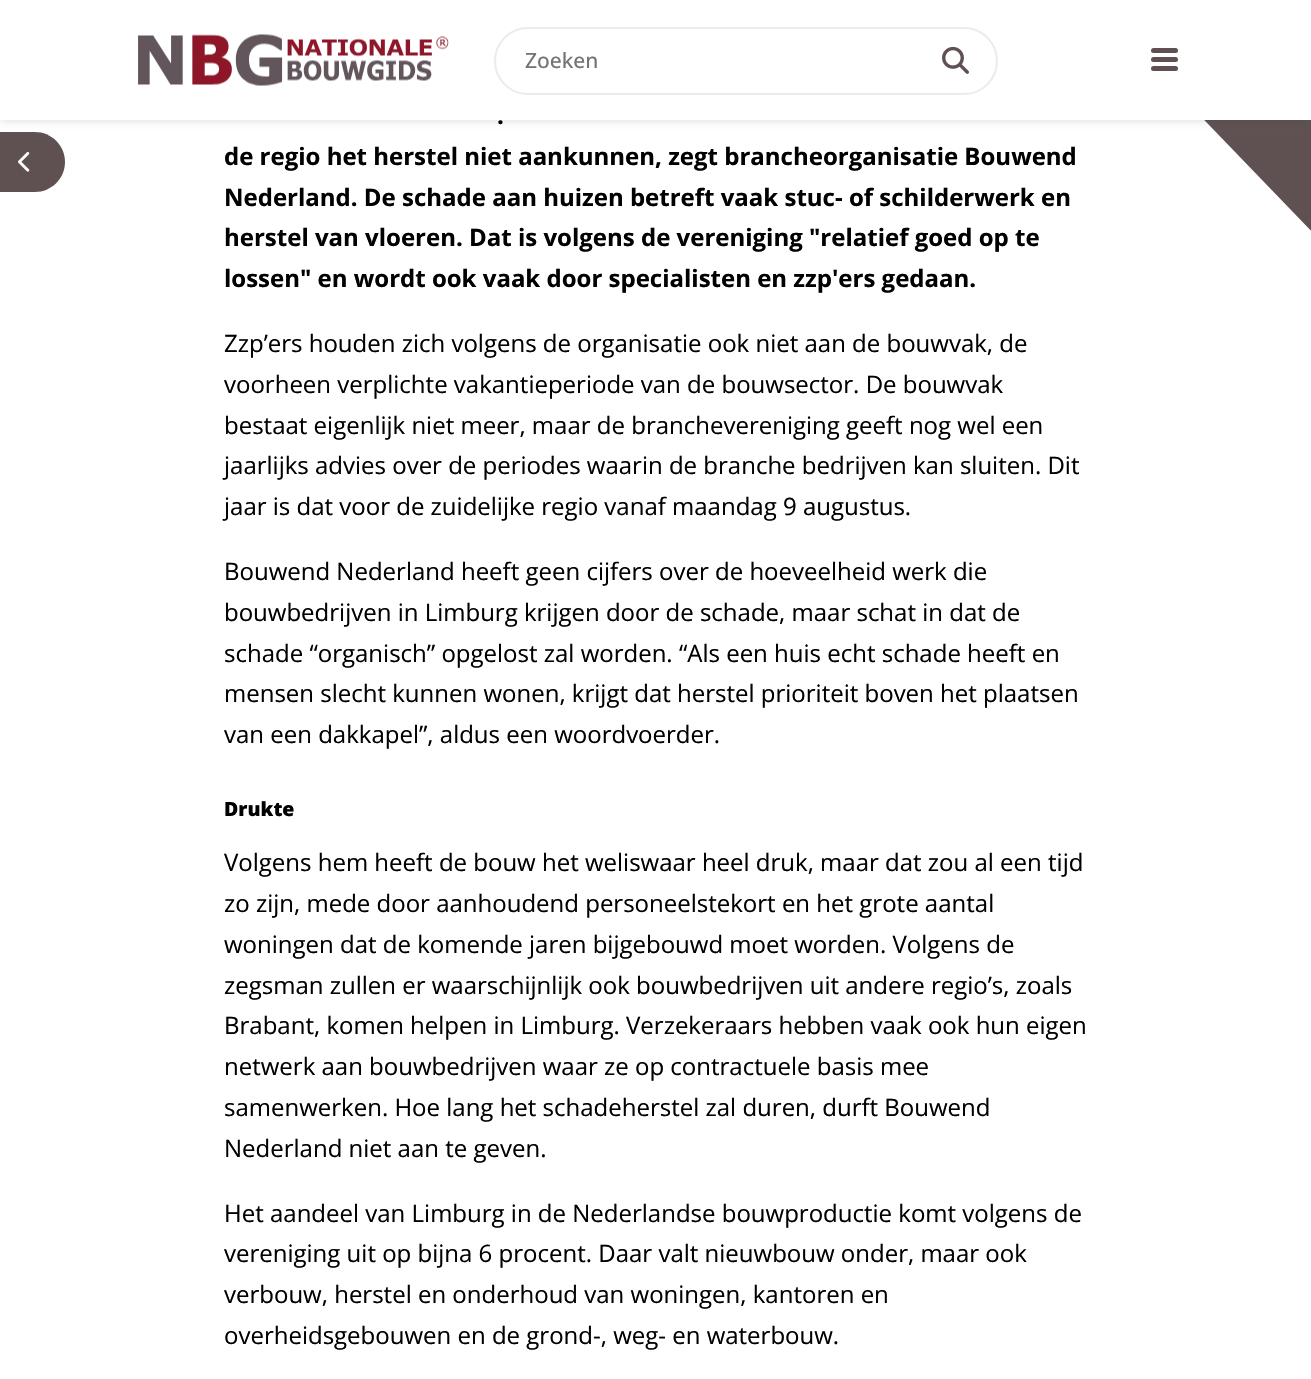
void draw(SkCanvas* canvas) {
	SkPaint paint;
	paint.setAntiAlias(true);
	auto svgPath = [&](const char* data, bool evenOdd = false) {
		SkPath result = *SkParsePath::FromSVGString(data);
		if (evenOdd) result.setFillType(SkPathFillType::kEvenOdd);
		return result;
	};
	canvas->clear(0xffffffff);
	paint.setColor(0xff5f5151);
	canvas->drawPath(svgPath("M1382-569L970-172C957-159 956-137 970-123L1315 235C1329 249 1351 249 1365 236L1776-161C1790-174 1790-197 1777-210L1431-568C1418-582 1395-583 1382-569Z", true), paint);
	canvas->drawPath(svgPath("M0 132H35C51.5 132 65 145.5 65 162C65 178.5 51.5 192 35 192H0Z"), paint);
	paint.setColor(0x333d3d3d);
	paint.setMaskFilter(SkMaskFilter::MakeBlur(kNormal_SkBlurStyle, 5));
	canvas->drawRect(SkRect::MakeXYWH(0, 0, 1311, 120), paint);
	paint.setMaskFilter(nullptr);
	paint.setColor(0xffffffff);
	canvas->drawRect(SkRect::MakeXYWH(0, 0, 1311, 120), paint);
	canvas->drawImageRect(SkImages::DeferredFromEncodedData(SkData::MakeFromFileName("img1.png")), SkRect::MakeXYWH(138, 34, 311, 52), SkSamplingOptions());
	paint.setStroke(true);
	paint.setStrokeWidth(2);
	paint.setColor(0xffedeaef);
	canvas->drawRoundRect(SkRect::MakeXYWH(495, 28, 502, 66), 33, 33, paint);
	SkFont f1(fontMgr->matchFamilyStyle("Open Sans", SkFontStyle(500, SkFontStyle::kNormal_Width, SkFontStyle::kUpright_Slant)), 21);
	f1.setSubpixel(true);
	paint.setStroke(false);
	paint.setColor(0xff757575);
	canvas->drawString("Zoeken", 525, 68, f1, paint);
	canvas->drawImageRect(SkImages::DeferredFromEncodedData(SkData::MakeFromFileName("img2.png")), SkRect::MakeXYWH(942, 46, 27, 28), SkSamplingOptions());
	paint.setColor(0xff5f5151);
	canvas->drawRoundRect(SkRect::MakeXYWH(1151, 48, 27, 5), 2.5, 2.5, paint);
	canvas->drawRoundRect(SkRect::MakeXYWH(1151, 57, 27, 5), 2.5, 2.5, paint);
	canvas->drawRoundRect(SkRect::MakeXYWH(1151, 66, 27, 5), 2.5, 2.5, paint);
	canvas->drawImageRect(SkImages::DeferredFromEncodedData(SkData::MakeFromFileName("img3.png")), SkRect::MakeXYWH(18, 152, 12, 20), SkSamplingOptions());
	SkFont f2(fontMgr->matchFamilyStyle("Open Sans", SkFontStyle::Bold()), 24);
	f2.setSubpixel(true);
	paint.setColor(0xff000000);
	canvas->drawString(".", 497, 124, f2, paint);
	canvas->drawString("de regio het herstel niet aankunnen, zegt brancheorganisatie Bouwend", 224, 165, f2, paint);
	canvas->drawString("Nederland. De schade aan huizen betreft vaak stuc- of schilderwerk en", 224, 206, f2, paint);
	canvas->drawString("herstel van vloeren. Dat is volgens de vereniging \"relatief goed op te", 224, 246, f2, paint);
	canvas->drawString("lossen\" en wordt ook vaak door specialisten en zzp'ers gedaan.", 224, 287, f2, paint);
	SkFont f3(fontMgr->matchFamilyStyle("Open Sans", SkFontStyle::Normal()), 24);
	f3.setSubpixel(true);
	canvas->drawString("Zzp’ers houden zich volgens de organisatie ook niet aan de bouwvak, de", 224, 352, f3, paint);
	canvas->drawString("voorheen verplichte vakantieperiode van de bouwsector. De bouwvak", 224, 393, f3, paint);
	canvas->drawString("bestaat eigenlijk niet meer, maar de branchevereniging geeft nog wel een", 224, 434, f3, paint);
	canvas->drawString("jaarlijks advies over de periodes waarin de branche bedrijven kan sluiten. Dit", 224, 474, f3, paint);
	canvas->drawString("jaar is dat voor de zuidelijke regio vanaf maandag 9 augustus.", 224, 515, f3, paint);
	canvas->drawString("Bouwend Nederland heeft geen cijfers over de hoeveelheid werk die", 224, 580, f3, paint);
	canvas->drawString("bouwbedrijven in Limburg krijgen door de schade, maar schat in dat de", 224, 621, f3, paint);
	canvas->drawString("schade “organisch” opgelost zal worden. “Als een huis echt schade heeft en", 224, 662, f3, paint);
	canvas->drawString("mensen slecht kunnen wonen, krijgt dat herstel prioriteit boven het plaatsen", 224, 702, f3, paint);
	canvas->drawString("van een dakkapel”, aldus een woordvoerder.", 224, 743, f3, paint);
	SkFont f4(fontMgr->matchFamilyStyle("Open Sans", SkFontStyle(800, SkFontStyle::kNormal_Width, SkFontStyle::kUpright_Slant)), 19.5);
	f4.setSubpixel(true);
	canvas->drawString("Drukte", 224, 816, f4, paint);
	canvas->drawString("Volgens hem heeft de bouw het weliswaar heel druk, maar dat zou al een tijd", 224, 871, f3, paint);
	canvas->drawString("zo zijn, mede door aanhoudend personeelstekort en het grote aantal", 224, 912, f3, paint);
	canvas->drawString("woningen dat de komende jaren bijgebouwd moet worden. Volgens de", 224, 953, f3, paint);
	canvas->drawString("zegsman zullen er waarschijnlijk ook bouwbedrijven uit andere regio’s, zoals", 224, 994, f3, paint);
	canvas->drawString("Brabant, komen helpen in Limburg. Verzekeraars hebben vaak ook hun eigen", 224, 1034, f3, paint);
	canvas->drawString("netwerk aan bouwbedrijven waar ze op contractuele basis mee", 224, 1075, f3, paint);
	canvas->drawString("samenwerken. Hoe lang het schadeherstel zal duren, durft Bouwend", 224, 1116, f3, paint);
	canvas->drawString("Nederland niet aan te geven.", 224, 1157, f3, paint);
	canvas->drawString("Het aandeel van Limburg in de Nederlandse bouwproductie komt volgens de", 224, 1222, f3, paint);
	canvas->drawString("vereniging uit op bijna 6 procent. Daar valt nieuwbouw onder, maar ook", 224, 1262, f3, paint);
	canvas->drawString("verbouw, herstel en onderhoud van woningen, kantoren en", 224, 1303, f3, paint);
	canvas->drawString("overheidsgebouwen en de grond-, weg- en waterbouw.", 224, 1344, f3, paint);
}
